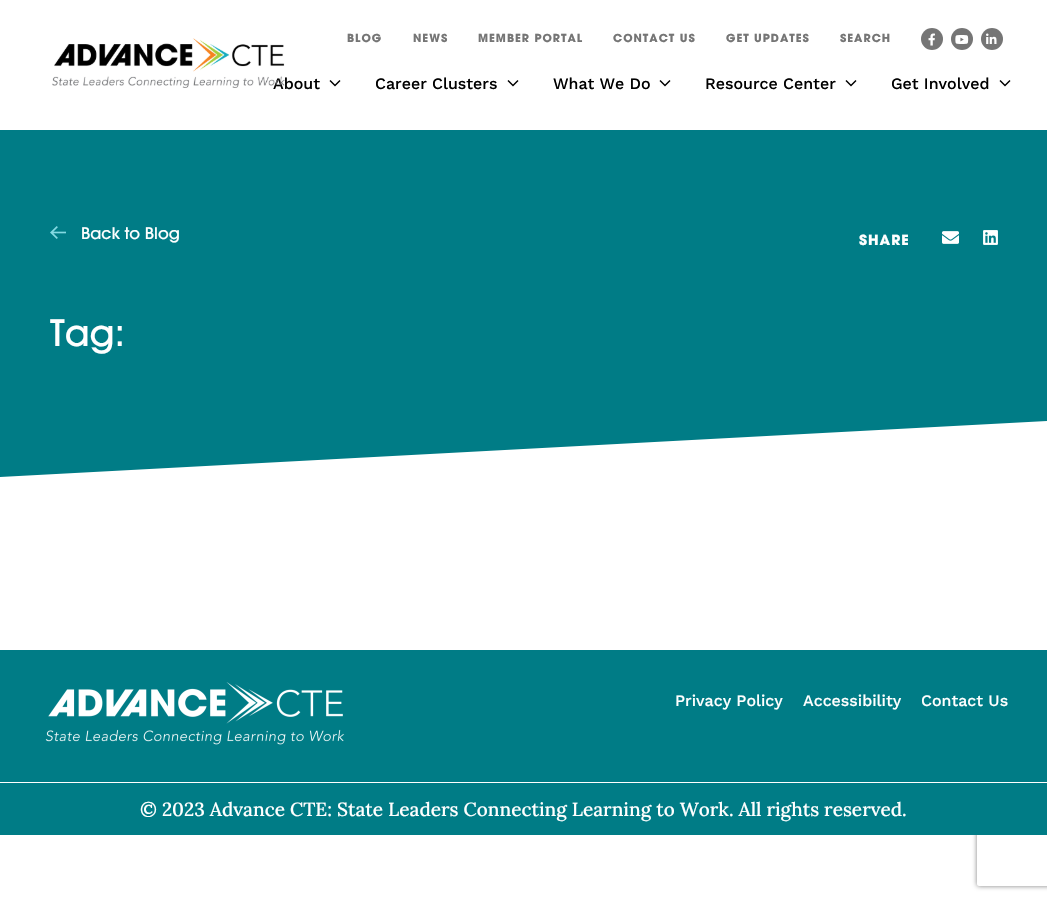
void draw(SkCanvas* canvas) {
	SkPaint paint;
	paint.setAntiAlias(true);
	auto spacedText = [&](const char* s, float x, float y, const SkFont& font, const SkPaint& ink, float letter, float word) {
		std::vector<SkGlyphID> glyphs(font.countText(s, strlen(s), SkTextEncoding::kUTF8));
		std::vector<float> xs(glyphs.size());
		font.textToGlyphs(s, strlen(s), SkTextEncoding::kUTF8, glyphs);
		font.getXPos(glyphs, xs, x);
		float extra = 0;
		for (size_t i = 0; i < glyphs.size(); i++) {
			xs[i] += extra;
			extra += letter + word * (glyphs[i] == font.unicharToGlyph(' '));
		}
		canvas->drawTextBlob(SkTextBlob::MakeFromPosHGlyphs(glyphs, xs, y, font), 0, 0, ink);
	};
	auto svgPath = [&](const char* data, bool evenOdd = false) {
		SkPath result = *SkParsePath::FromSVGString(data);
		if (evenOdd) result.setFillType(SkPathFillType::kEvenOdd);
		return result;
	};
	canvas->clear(0xffffffff);
	SkFont f1(fontMgr->matchFamilyStyle("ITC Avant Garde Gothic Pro", SkFontStyle::Bold()), 11);
	f1.setSubpixel(true);
	paint.setColor(0xff757575);
	spacedText("BLOG", 347, 42, f1, paint, 1, 0);
	spacedText("NEWS", 413, 42, f1, paint, 1, 0);
	spacedText("MEMBER PORTAL", 478, 42, f1, paint, 1, 0);
	spacedText("CONTACT US", 613, 42, f1, paint, 1, 0);
	spacedText("GET UPDATES", 726, 42, f1, paint, 1, 0);
	spacedText("SEARCH", 840, 42, f1, paint, 1, 0);
	canvas->drawCircle(932, 39, 11, paint);
	canvas->drawImageRect(SkImages::DeferredFromEncodedData(SkData::MakeFromFileName("img1.png")), SkRect::MakeXYWH(928, 33, 7, 13), SkSamplingOptions());
	canvas->drawCircle(962, 39, 11, paint);
	canvas->drawImageRect(SkImages::DeferredFromEncodedData(SkData::MakeFromFileName("img2.png")), SkRect::MakeXYWH(955, 35, 14, 9), SkSamplingOptions());
	canvas->drawCircle(992, 39, 11, paint);
	canvas->drawImageRect(SkImages::DeferredFromEncodedData(SkData::MakeFromFileName("img3.png")), SkRect::MakeXYWH(986, 33, 11, 11), SkSamplingOptions());
	SkFont f2(fontMgr->matchFamilyStyle("Work Sans", SkFontStyle(500, SkFontStyle::kNormal_Width, SkFontStyle::kUpright_Slant)), 16);
	f2.setSubpixel(true);
	paint.setColor(0xff000000);
	canvas->drawString("About", 273, 89, f2, paint);
	canvas->drawImageRect(SkImages::DeferredFromEncodedData(SkData::MakeFromFileName("img4.png")), SkRect::MakeXYWH(52, 38, 233, 50), SkSamplingOptions());
	paint.setStroke(true);
	paint.setStrokeWidth(1.5);
	canvas->drawPath(svgPath("M330 80.5L335 85.5L340 80.5"), paint);
	paint.setStroke(false);
	canvas->drawString("Career Clusters", 375, 89, f2, paint);
	paint.setStroke(true);
	canvas->drawPath(svgPath("M508 80.5L513 85.5L518 80.5"), paint);
	paint.setStroke(false);
	canvas->drawString("What We Do", 553, 89, f2, paint);
	paint.setStroke(true);
	canvas->drawPath(svgPath("M660 80.5L665 85.5L670 80.5"), paint);
	paint.setStroke(false);
	canvas->drawString("Resource Center", 705, 89, f2, paint);
	paint.setStroke(true);
	canvas->drawPath(svgPath("M846 80.5L851 85.5L856 80.5"), paint);
	paint.setStroke(false);
	canvas->drawString("Get Involved", 891, 89, f2, paint);
	paint.setStroke(true);
	canvas->drawPath(svgPath("M1000 80.5L1005 85.5L1010 80.5"), paint);
	paint.setStroke(false);
	paint.setColor(0xff007c86);
	canvas->drawRect(SkRect::MakeXYWH(0, 130, 1047, 347), paint);
	canvas->drawImageRect(SkImages::DeferredFromEncodedData(SkData::MakeFromFileName("img5.png")), SkRect::MakeXYWH(50, 226, 16, 13), SkSamplingOptions());
	SkFont f3(fontMgr->matchFamilyStyle("ITC Avant Garde Gothic Pro", SkFontStyle(500, SkFontStyle::kNormal_Width, SkFontStyle::kUpright_Slant)), 16);
	f3.setSubpixel(true);
	paint.setColor(0xffffffff);
	canvas->drawString("Back to Blog", 81, 239, f3, paint);
	SkFont f4(fontMgr->matchFamilyStyle("ITC Avant Garde Gothic Pro", SkFontStyle::Bold()), 14);
	f4.setSubpixel(true);
	spacedText("SHARE", 859, 245, f4, paint, 1, 0);
	canvas->drawImageRect(SkImages::DeferredFromEncodedData(SkData::MakeFromFileName("img6.png")), SkRect::MakeXYWH(942, 231, 17, 13), SkSamplingOptions());
	canvas->drawImageRect(SkImages::DeferredFromEncodedData(SkData::MakeFromFileName("img7.png")), SkRect::MakeXYWH(983, 230, 15, 15), SkSamplingOptions());
	SkFont f5(fontMgr->matchFamilyStyle("ITC Avant Garde Gothic Pro", SkFontStyle(500, SkFontStyle::kNormal_Width, SkFontStyle::kUpright_Slant)), 36);
	f5.setSubpixel(true);
	canvas->drawString("Tag:", 50, 346, f5, paint);
	canvas->drawPath(svgPath("M0 477V481H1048V421Z"), paint);
	paint.setColor(0xff007c86);
	canvas->drawRect(SkRect::MakeXYWH(0, 650, 1047, 132), paint);
	canvas->drawImageRect(SkImages::DeferredFromEncodedData(SkData::MakeFromFileName("img8.png")), SkRect::MakeXYWH(45, 682, 300, 63), SkSamplingOptions());
	paint.setColor(0xffffffff);
	canvas->drawString("Privacy Policy", 675, 706, f2, paint);
	canvas->drawString("Accessibility", 803, 706, f2, paint);
	canvas->drawString("Contact Us", 921, 706, f2, paint);
	canvas->save();
	canvas->clipPath(svgPath("M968 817H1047V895H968ZM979 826H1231C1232 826 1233 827 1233 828V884C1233 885 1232 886 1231 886H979C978 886 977 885 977 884V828C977 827 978 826 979 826Z", true), true);
	paint.setColor(0xff808080);
	paint.setMaskFilter(SkMaskFilter::MakeBlur(kNormal_SkBlurStyle, 2.5));
	canvas->drawRoundRect(SkRect::MakeXYWH(977, 826, 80, 60), 2, 2, paint);
	paint.setMaskFilter(nullptr);
	canvas->restore();
	paint.setColor(0xff007c86);
	canvas->drawRect(SkRect::MakeXYWH(0, 783, 1047, 52), paint);
	SkFont f6(fontMgr->matchFamilyStyle("Lora", SkFontStyle(500, SkFontStyle::kNormal_Width, SkFontStyle::kUpright_Slant)), 19);
	f6.setSubpixel(true);
	paint.setColor(0xffffffff);
	canvas->drawString("© 2023 Advance CTE: State Leaders Connecting Learning to Work. All rights reserved.", 140, 816, f6, paint);
}
